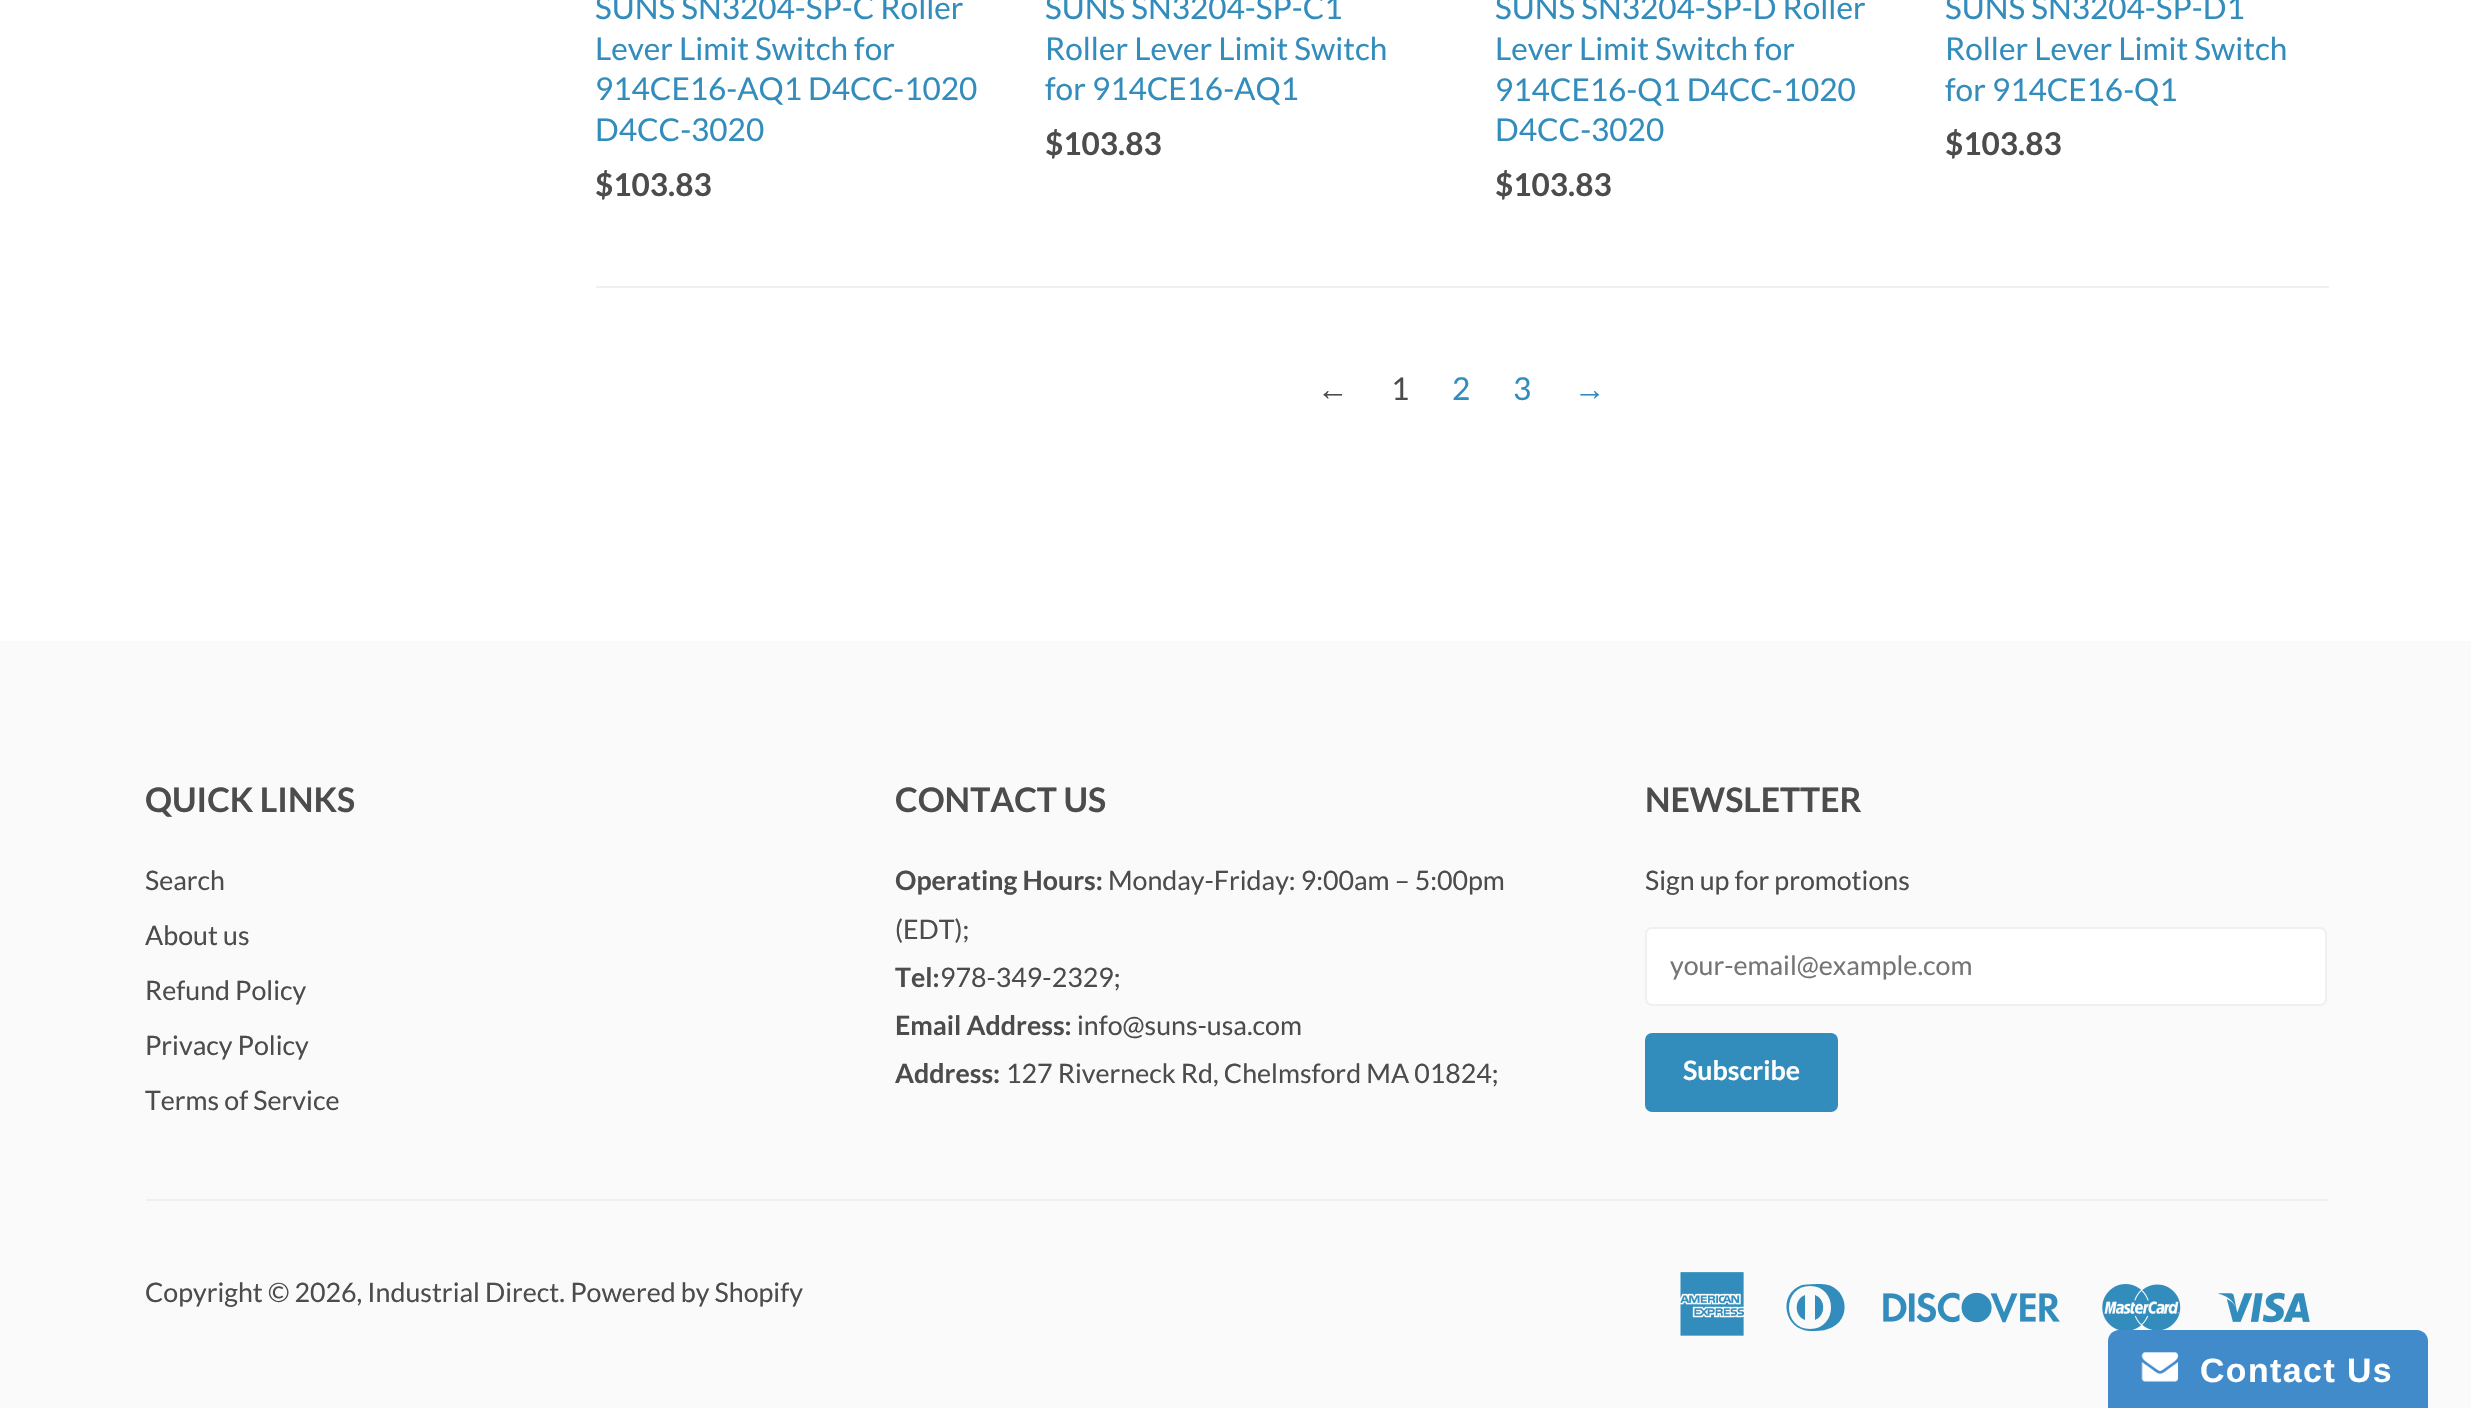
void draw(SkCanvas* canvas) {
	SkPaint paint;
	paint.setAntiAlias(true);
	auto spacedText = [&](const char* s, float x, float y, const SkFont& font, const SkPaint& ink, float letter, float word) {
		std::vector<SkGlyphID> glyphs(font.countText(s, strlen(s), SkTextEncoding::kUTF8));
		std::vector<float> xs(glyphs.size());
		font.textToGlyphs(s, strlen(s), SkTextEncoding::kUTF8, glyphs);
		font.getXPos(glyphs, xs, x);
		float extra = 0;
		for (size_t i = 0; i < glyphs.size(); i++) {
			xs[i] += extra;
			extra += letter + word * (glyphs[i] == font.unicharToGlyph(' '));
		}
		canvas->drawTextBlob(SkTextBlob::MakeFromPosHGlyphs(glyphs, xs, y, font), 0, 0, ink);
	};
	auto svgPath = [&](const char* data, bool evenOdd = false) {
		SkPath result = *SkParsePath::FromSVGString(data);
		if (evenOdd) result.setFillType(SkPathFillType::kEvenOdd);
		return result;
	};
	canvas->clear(0xffffffff);
	SkFont f1(fontMgr->matchFamilyStyle("Lato", SkFontStyle::Normal()), 31.5);
	f1.setSubpixel(true);
	paint.setColor(0xff338dbc);
	canvas->drawString("SUNS SN3204-SP-C Roller", 595, 19, f1, paint);
	canvas->drawString("Lever Limit Switch for", 595, 60, f1, paint);
	canvas->drawString("914CE16-AQ1 D4CC-1020", 595, 100, f1, paint);
	canvas->drawString("D4CC-3020", 595, 141, f1, paint);
	SkFont f2(fontMgr->matchFamilyStyle("Lato", SkFontStyle::Bold()), 31.5);
	f2.setSubpixel(true);
	paint.setColor(0xff4c4c4c);
	canvas->drawString("$103.83", 595, 196, f2, paint);
	paint.setColor(0xff338dbc);
	canvas->drawString("SUNS SN3204-SP-C1", 1045, 19, f1, paint);
	canvas->drawString("Roller Lever Limit Switch", 1045, 60, f1, paint);
	canvas->drawString("for 914CE16-AQ1", 1045, 100, f1, paint);
	paint.setColor(0xff4c4c4c);
	canvas->drawString("$103.83", 1045, 155, f2, paint);
	paint.setColor(0xff338dbc);
	canvas->drawString("SUNS SN3204-SP-D Roller", 1495, 19, f1, paint);
	canvas->drawString("Lever Limit Switch for", 1495, 60, f1, paint);
	canvas->drawString("914CE16-Q1 D4CC-1020", 1495, 101, f1, paint);
	canvas->drawString("D4CC-3020", 1495, 141, f1, paint);
	paint.setColor(0xff4c4c4c);
	canvas->drawString("$103.83", 1495, 196, f2, paint);
	paint.setColor(0xff338dbc);
	canvas->drawString("SUNS SN3204-SP-D1", 1945, 19, f1, paint);
	canvas->drawString("Roller Lever Limit Switch", 1945, 60, f1, paint);
	canvas->drawString("for 914CE16-Q1", 1945, 101, f1, paint);
	paint.setColor(0xff4c4c4c);
	canvas->drawString("$103.83", 1945, 155, f2, paint);
	paint.setColor(0xfff0f0f0);
	canvas->drawRect(SkRect::MakeXYWH(596, 286, 1733, 2), paint);
	SkFont f3(fontMgr->matchFamilyStyle("Liberation Sans", SkFontStyle::Normal()), 31.5);
	f3.setSubpixel(true);
	paint.setColor(0xff4c4c4c);
	canvas->drawString("←", 1317, 400, f3, paint);
	canvas->drawString("1", 1391, 400, f1, paint);
	paint.setColor(0xff338dbc);
	canvas->drawString("2", 1452, 400, f1, paint);
	canvas->drawString("3", 1513, 400, f1, paint);
	canvas->drawString("→", 1574, 400, f3, paint);
	paint.setColor(0xfffafafa);
	canvas->drawRect(SkRect::MakeXYWH(0, 641, 2471, 767), paint);
	SkFont f4(fontMgr->matchFamilyStyle("Lato", SkFontStyle::Bold()), 33.75);
	f4.setSubpixel(true);
	paint.setColor(0xff4c4c4c);
	canvas->drawString("QUICK LINKS", 145, 812, f4, paint);
	SkFont f5(fontMgr->matchFamilyStyle("Lato", SkFontStyle::Normal()), 26.75);
	f5.setSubpixel(true);
	canvas->drawString("Search", 145, 890, f5, paint);
	canvas->drawString("About us", 145, 945, f5, paint);
	canvas->drawString("Refund Policy", 145, 1000, f5, paint);
	canvas->drawString("Privacy Policy", 145, 1055, f5, paint);
	canvas->drawString("Terms of Service", 145, 1110, f5, paint);
	canvas->drawString("CONTACT US", 895, 812, f4, paint);
	SkFont f6(fontMgr->matchFamilyStyle("Lato", SkFontStyle::Bold()), 26.75);
	f6.setSubpixel(true);
	canvas->drawString("Operating Hours:", 895, 890, f6, paint);
	canvas->drawString("Monday-Friday: 9:00am – 5:00pm", 1108, 890, f5, paint);
	canvas->drawString("(EDT);", 895, 939, f5, paint);
	canvas->drawString("Tel:", 895, 987, f6, paint);
	canvas->drawString("978-349-2329;", 940, 987, f5, paint);
	canvas->drawString("Email Address:", 895, 1035, f6, paint);
	canvas->drawString("info@suns-usa.com", 1077, 1035, f5, paint);
	canvas->drawString("Address:", 895, 1083, f6, paint);
	canvas->drawString("127 Riverneck Rd, Chelmsford MA 01824;", 1006, 1083, f5, paint);
	canvas->drawString("NEWSLETTER", 1645, 812, f4, paint);
	canvas->drawString("Sign up for promotions", 1645, 890, f5, paint);
	paint.setColor(0xffffffff);
	canvas->drawRoundRect(SkRect::MakeXYWH(1646, 928, 680, 77), 6, 6, paint);
	paint.setStroke(true);
	paint.setStrokeWidth(2);
	paint.setColor(0xfff0f0f0);
	canvas->drawRoundRect(SkRect::MakeXYWH(1646, 928, 680, 77), 6, 6, paint);
	paint.setStroke(false);
	paint.setColor(0xff757575);
	canvas->drawString("your-email@example.com", 1670, 975, f5, paint);
	paint.setColor(0xff338dbc);
	canvas->drawRoundRect(SkRect::MakeXYWH(1645, 1033, 193, 79), 7, 7, paint);
	paint.setColor(0xffffffff);
	canvas->drawString("Subscribe", 1683, 1080, f6, paint);
	paint.setColor(0xfff0f0f0);
	canvas->drawRect(SkRect::MakeXYWH(146, 1199, 2183, 2), paint);
	paint.setColor(0xff4c4c4c);
	canvas->drawString("Copyright © 2026, Industrial Direct. Powered by Shopify", 145, 1302, f5, paint);
	canvas->drawImageRect(SkImages::DeferredFromEncodedData(SkData::MakeFromFileName("img1.png")), SkRect::MakeXYWH(1680, 1272, 64, 64), SkSamplingOptions());
	paint.setColor(0xff338dbc);
	canvas->drawPath(svgPath("M1821 1284C1848 1284 1854 1321 1828 1329C1823 1331 1816 1331 1810 1331C1784 1330 1777 1294 1802 1285C1808 1284 1815 1284 1821 1284ZM1810 1329C1838 1329 1838 1286 1810 1286C1782 1286 1782 1329 1810 1329ZM1805 1320C1794 1316 1794 1299 1805 1295ZM1815 1295C1826 1299 1826 1316 1815 1320Z"), paint);
	canvas->drawImageRect(SkImages::DeferredFromEncodedData(SkData::MakeFromFileName("img2.png")), SkRect::MakeXYWH(1883, 1292, 177, 31), SkSamplingOptions());
	canvas->drawImageRect(SkImages::DeferredFromEncodedData(SkData::MakeFromFileName("img3.png")), SkRect::MakeXYWH(2102, 1284, 79, 46), SkSamplingOptions());
	canvas->drawImageRect(SkImages::DeferredFromEncodedData(SkData::MakeFromFileName("img4.png")), SkRect::MakeXYWH(2218, 1292, 92, 31), SkSamplingOptions());
	paint.setColor(0xff428bca);
	canvas->drawPath(svgPath("M2119 1330H2417C2423 1330 2428 1335 2428 1341V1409H2108V1341C2108 1335 2113 1330 2119 1330Z"), paint);
	canvas->drawImageRect(SkImages::DeferredFromEncodedData(SkData::MakeFromFileName("img5.png")), SkRect::MakeXYWH(2141, 1352, 38, 30), SkSamplingOptions());
	SkFont f7(fontMgr->matchFamilyStyle("Liberation Sans", SkFontStyle::Bold()), 33.75);
	f7.setSubpixel(true);
	paint.setColor(0xffffffff);
	spacedText("Contact Us", 2200, 1382, f7, paint, 1.5, 0);
}
